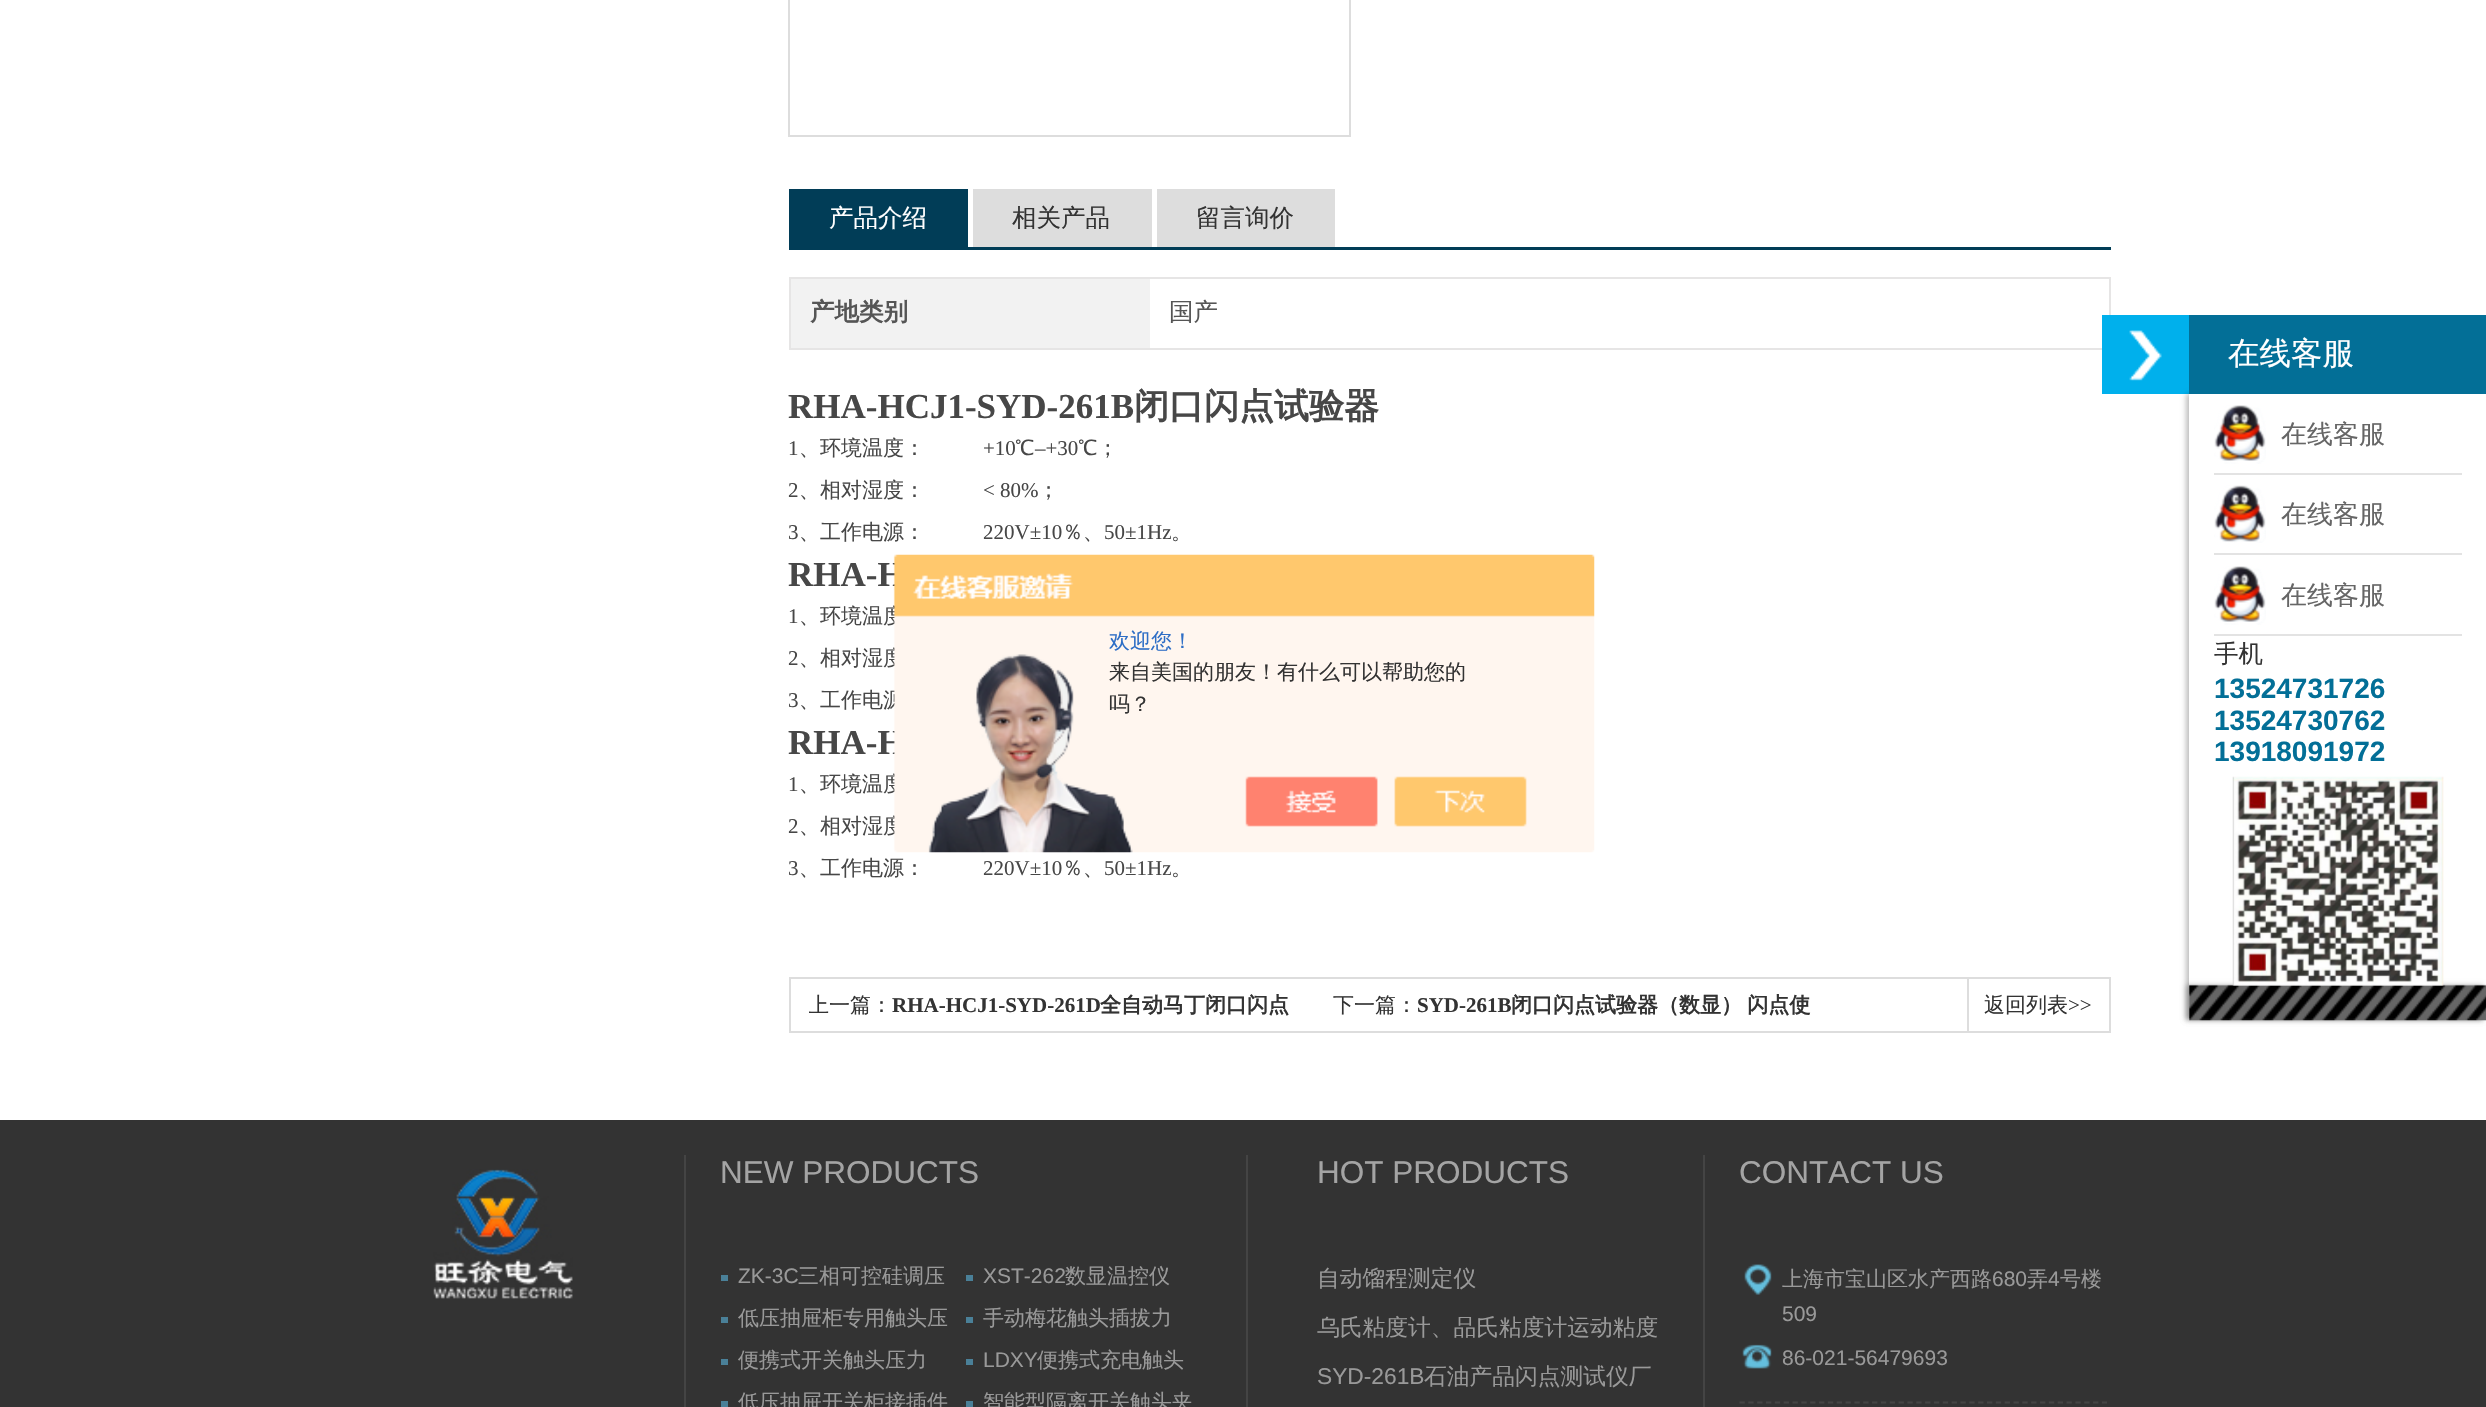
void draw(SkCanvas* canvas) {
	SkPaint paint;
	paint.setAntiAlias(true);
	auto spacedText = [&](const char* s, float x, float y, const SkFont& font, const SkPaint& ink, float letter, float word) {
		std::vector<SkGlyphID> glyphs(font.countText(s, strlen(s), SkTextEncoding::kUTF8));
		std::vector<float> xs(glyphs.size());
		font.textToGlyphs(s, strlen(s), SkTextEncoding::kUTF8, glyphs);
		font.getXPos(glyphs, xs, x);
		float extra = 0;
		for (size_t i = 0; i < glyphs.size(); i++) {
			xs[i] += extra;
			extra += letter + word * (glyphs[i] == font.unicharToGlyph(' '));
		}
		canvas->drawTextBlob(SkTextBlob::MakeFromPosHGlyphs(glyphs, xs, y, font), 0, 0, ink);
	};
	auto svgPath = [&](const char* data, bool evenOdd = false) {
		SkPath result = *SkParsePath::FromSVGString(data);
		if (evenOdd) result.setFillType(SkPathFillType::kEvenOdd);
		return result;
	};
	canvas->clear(0xffffffff);
	paint.setStroke(true);
	paint.setStrokeWidth(2);
	paint.setColor(0xffdddddd);
	canvas->drawRect(SkRect::MakeXYWH(789, -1, 561, 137), paint);
	paint.setStroke(false);
	paint.setColor(0xff013d57);
	canvas->drawRect(SkRect::MakeXYWH(789, 247, 1322, 3), paint);
	canvas->drawRect(SkRect::MakeXYWH(789, 189, 179, 58), paint);
	SkFont f1(fontMgr->matchFamilyStyle("WenQuanYi Zen Hei", SkFontStyle(500, SkFontStyle::kNormal_Width, SkFontStyle::kUpright_Slant)), 24.5);
	f1.setSubpixel(true);
	paint.setColor(0xffffffff);
	canvas->drawString("产品介绍", 829, 226, f1, paint);
	paint.setColor(0xffdddddd);
	canvas->drawRect(SkRect::MakeXYWH(973, 189, 179, 58), paint);
	paint.setColor(0xff333333);
	canvas->drawString("相关产品", 1012, 226, f1, paint);
	paint.setColor(0xffdddddd);
	canvas->drawRect(SkRect::MakeXYWH(1157, 189, 178, 58), paint);
	paint.setColor(0xff333333);
	canvas->drawString("留言询价", 1196, 226, f1, paint);
	paint.setColor(0xffe6e5e5);
	canvas->drawRect(SkRect::MakeXYWH(789, 277, 1322, 2), paint);
	canvas->drawRect(SkRect::MakeXYWH(2109, 277, 2, 38), paint);
	canvas->drawRect(SkRect::MakeXYWH(789, 277, 2, 73), paint);
	paint.setColor(0xfff2f2f2);
	canvas->drawRect(SkRect::MakeXYWH(791, 279, 359, 69), paint);
	SkFont f2(fontMgr->matchFamilyStyle("WenQuanYi Zen Hei", SkFontStyle::Bold()), 24.5);
	f2.setSubpixel(true);
	paint.setColor(0xff555555);
	canvas->drawString("产地类别", 810, 320, f2, paint);
	paint.setColor(0xffe6e5e5);
	canvas->drawRect(SkRect::MakeXYWH(789, 348, 1313, 2), paint);
	paint.setColor(0xff555555);
	canvas->drawString("国产", 1169, 320, f1, paint);
	SkFont f3(fontMgr->matchFamilyStyle("Liberation Serif", SkFontStyle::Bold()), 35);
	f3.setSubpixel(true);
	paint.setColor(0xff474747);
	canvas->drawString("RHA-HCJ1-SYD-261B", 788, 418, f3, paint);
	SkFont f4(fontMgr->matchFamilyStyle("WenQuanYi Zen Hei", SkFontStyle::Bold()), 35);
	f4.setSubpixel(true);
	canvas->drawString("闭口闪点试验器", 1134, 418, f4, paint);
	SkFont f5(fontMgr->matchFamilyStyle("Liberation Serif", SkFontStyle::Normal()), 21);
	f5.setSubpixel(true);
	canvas->drawString("1", 788, 455, f5, paint);
	SkFont f6(fontMgr->matchFamilyStyle("WenQuanYi Zen Hei", SkFontStyle(500, SkFontStyle::kNormal_Width, SkFontStyle::kUpright_Slant)), 21);
	f6.setSubpixel(true);
	canvas->drawString("、环境温度：", 799, 455, f6, paint);
	canvas->drawString("+10", 983, 455, f5, paint);
	canvas->drawString("℃", 1015, 455, f6, paint);
	canvas->drawString("–+30", 1035, 455, f5, paint);
	canvas->drawString("℃；", 1078, 455, f6, paint);
	canvas->drawString("2", 788, 497, f5, paint);
	canvas->drawString("、相对湿度：", 799, 497, f6, paint);
	canvas->drawString("< 80%", 983, 497, f5, paint);
	canvas->drawString("；", 1038, 497, f6, paint);
	canvas->drawString("3", 788, 539, f5, paint);
	canvas->drawString("、工作电源：", 799, 539, f6, paint);
	canvas->drawString("220V±10", 983, 539, f5, paint);
	canvas->drawString("％、", 1062, 539, f6, paint);
	canvas->drawString("50±1Hz", 1104, 539, f5, paint);
	canvas->drawString("。", 1171, 539, f6, paint);
	canvas->drawString("RHA-H", 788, 586, f3, paint);
	canvas->drawString("1", 788, 623, f5, paint);
	canvas->drawString("、环境温度", 799, 623, f6, paint);
	canvas->drawString("2", 788, 665, f5, paint);
	canvas->drawString("、相对湿度", 799, 665, f6, paint);
	canvas->drawString("3", 788, 707, f5, paint);
	canvas->drawString("、工作电源", 799, 707, f6, paint);
	canvas->drawString("RHA-H", 788, 754, f3, paint);
	canvas->drawString("1", 788, 791, f5, paint);
	canvas->drawString("、环境温度", 799, 791, f6, paint);
	canvas->drawString("2", 788, 833, f5, paint);
	canvas->drawString("、相对湿度", 799, 833, f6, paint);
	canvas->drawString("3", 788, 875, f5, paint);
	canvas->drawString("、工作电源：", 799, 875, f6, paint);
	canvas->drawString("220V±10", 983, 875, f5, paint);
	canvas->drawString("％、", 1062, 875, f6, paint);
	canvas->drawString("50±1Hz", 1104, 875, f5, paint);
	canvas->drawString("。", 1171, 875, f6, paint);
	paint.setStroke(true);
	paint.setColor(0xffdddddd);
	canvas->drawRect(SkRect::MakeXYWH(790, 978, 1320, 54), paint);
	canvas->save();
	canvas->clipRect(SkRect::MakeXYWH(809, 978, 490, 53));
	paint.setStroke(false);
	paint.setColor(0xff333333);
	canvas->drawString("上一篇：", 808, 1012, f6, paint);
	canvas->restore();
	SkFont f7(fontMgr->matchFamilyStyle("Liberation Serif", SkFontStyle::Bold()), 21);
	f7.setSubpixel(true);
	canvas->drawString("RHA-HCJ1-SYD-261D", 892, 1012, f7, paint);
	SkFont f8(fontMgr->matchFamilyStyle("WenQuanYi Zen Hei", SkFontStyle::Bold()), 21);
	f8.setSubpixel(true);
	canvas->drawString("全自动马丁闭口闪点", 1100, 1012, f8, paint);
	canvas->drawString("下一篇：", 1333, 1012, f6, paint);
	canvas->drawString("SYD-261B", 1417, 1012, f7, paint);
	spacedText("闭口闪点试验器（数显） 闪点使", 1511, 1012, f8, paint, 0, -1);
	paint.setColor(0xffdddddd);
	canvas->drawRect(SkRect::MakeXYWH(1967, 978, 2, 53), paint);
	paint.setColor(0xff333333);
	canvas->drawString("返回列表", 1984, 1012, f6, paint);
	canvas->drawString(">>", 2068, 1012, f5, paint);
	paint.setColor(0xff00b0ec);
	canvas->drawRect(SkRect::MakeXYWH(2102, 315, 87, 79), paint);
	canvas->drawImageRect(SkImages::DeferredFromEncodedData(SkData::MakeFromFileName("img1.png")), SkRect::MakeXYWH(2129, 330, 33, 51), SkSamplingOptions());
	paint.setColor(0x40000000);
	paint.setMaskFilter(SkMaskFilter::MakeBlur(kNormal_SkBlurStyle, 2.5));
	canvas->drawRect(SkRect::MakeXYWH(2186, 394, 297, 626), paint);
	paint.setMaskFilter(nullptr);
	paint.setColor(0xff036f97);
	canvas->drawRect(SkRect::MakeXYWH(2189, 315, 297, 79), paint);
	SkFont f9(fontMgr->matchFamilyStyle("WenQuanYi Zen Hei", SkFontStyle(500, SkFontStyle::kNormal_Width, SkFontStyle::kUpright_Slant)), 31.5);
	f9.setSubpixel(true);
	paint.setColor(0xffffffff);
	canvas->drawString("在线客服", 2228, 364, f9, paint);
	canvas->drawRect(SkRect::MakeXYWH(2189, 394, 297, 626), paint);
	paint.setColor(0xffe3e3e3);
	canvas->drawRect(SkRect::MakeXYWH(2214, 473, 248, 2), paint);
	canvas->drawImageRect(SkImages::DeferredFromEncodedData(SkData::MakeFromFileName("img2.png")), SkRect::MakeXYWH(2214, 405, 52, 59), SkSamplingOptions());
	SkFont f10(fontMgr->matchFamilyStyle("WenQuanYi Zen Hei", SkFontStyle(500, SkFontStyle::kNormal_Width, SkFontStyle::kUpright_Slant)), 26);
	f10.setSubpixel(true);
	paint.setColor(0xff666666);
	canvas->drawString("在线客服", 2281, 443, f10, paint);
	paint.setColor(0xffe3e3e3);
	canvas->drawRect(SkRect::MakeXYWH(2214, 553, 248, 2), paint);
	canvas->drawImageRect(SkImages::DeferredFromEncodedData(SkData::MakeFromFileName("img3.png")), SkRect::MakeXYWH(2214, 485, 52, 58), SkSamplingOptions());
	paint.setColor(0xff666666);
	canvas->drawString("在线客服", 2281, 523, f10, paint);
	paint.setColor(0xffe3e3e3);
	canvas->drawRect(SkRect::MakeXYWH(2214, 634, 248, 2), paint);
	canvas->drawImageRect(SkImages::DeferredFromEncodedData(SkData::MakeFromFileName("img4.png")), SkRect::MakeXYWH(2214, 566, 52, 59), SkSamplingOptions());
	paint.setColor(0xff666666);
	canvas->drawString("在线客服", 2281, 604, f10, paint);
	paint.setColor(0xff333333);
	canvas->drawString("手机", 2214, 662, f1, paint);
	SkFont f11(fontMgr->matchFamilyStyle("Liberation Sans", SkFontStyle::Bold()), 28);
	f11.setSubpixel(true);
	paint.setColor(0xff036f97);
	canvas->drawString("13524731726", 2214, 698, f11, paint);
	canvas->drawString("13524730762", 2214, 730, f11, paint);
	canvas->drawString("13918091972", 2214, 761, f11, paint);
	paint.setColor(0x40000000);
	paint.setMaskFilter(SkMaskFilter::MakeBlur(kNormal_SkBlurStyle, 2.5));
	canvas->drawRect(SkRect::MakeXYWH(2186, 985, 297, 35), paint);
	paint.setMaskFilter(nullptr);
	canvas->drawImageRect(SkImages::DeferredFromEncodedData(SkData::MakeFromFileName("img6.png")), SkRect::MakeXYWH(2189, 984, 297, 37), SkSamplingOptions());
	canvas->drawImageRect(SkImages::DeferredFromEncodedData(SkData::MakeFromFileName("img5.png")), SkRect::MakeXYWH(2232, 776, 212, 210), SkSamplingOptions());
	canvas->drawImageRect(SkImages::DeferredFromEncodedData(SkData::MakeFromFileName("img7.png")), SkRect::MakeXYWH(893, 554, 702, 299), SkSamplingOptions());
	paint.setColor(0xff2e6ec6);
	canvas->drawString("欢迎您！", 1109, 648, f6, paint);
	paint.setColor(0xff333333);
	canvas->drawString("来自美国的朋友！有什么可以帮助您的", 1109, 679, f6, paint);
	canvas->drawString("吗？", 1109, 711, f6, paint);
	canvas->drawRect(SkRect::MakeXYWH(0, 1120, 2486, 287), paint);
	paint.setColor(0xff444444);
	canvas->drawRect(SkRect::MakeXYWH(684, 1155, 2, 252), paint);
	canvas->drawImageRect(SkImages::DeferredFromEncodedData(SkData::MakeFromFileName("img8.png")), SkRect::MakeXYWH(433, 1169, 140, 130), SkSamplingOptions());
	SkFont f12(fontMgr->matchFamilyStyle("Liberation Sans", SkFontStyle::Normal()), 31.5);
	f12.setSubpixel(true);
	paint.setColor(0xffa4a4a4);
	canvas->drawString("NEW PRODUCTS", 720, 1183, f12, paint);
	paint.setColor(0xff4a8098);
	canvas->drawRect(SkRect::MakeXYWH(721, 1275, 7, 6), paint);
	SkFont f13(fontMgr->matchFamilyStyle("Liberation Sans", SkFontStyle::Normal()), 21);
	f13.setSubpixel(true);
	paint.setColor(0xff999999);
	canvas->drawString("ZK-3C", 738, 1283, f13, paint);
	canvas->drawString("三相可控硅调压", 798, 1283, f6, paint);
	paint.setColor(0xff4a8098);
	canvas->drawRect(SkRect::MakeXYWH(966, 1275, 7, 6), paint);
	paint.setColor(0xff999999);
	canvas->drawString("XST-262", 983, 1283, f13, paint);
	canvas->drawString("数显温控仪", 1065, 1283, f6, paint);
	paint.setColor(0xff4a8098);
	canvas->drawRect(SkRect::MakeXYWH(721, 1317, 7, 6), paint);
	paint.setColor(0xff999999);
	canvas->drawString("低压抽屉柜专用触头压", 738, 1325, f6, paint);
	paint.setColor(0xff4a8098);
	canvas->drawRect(SkRect::MakeXYWH(966, 1317, 7, 6), paint);
	paint.setColor(0xff999999);
	canvas->drawString("手动梅花触头插拔力", 983, 1325, f6, paint);
	paint.setColor(0xff4a8098);
	canvas->drawRect(SkRect::MakeXYWH(721, 1359, 7, 6), paint);
	paint.setColor(0xff999999);
	canvas->drawString("便携式开关触头压力", 738, 1367, f6, paint);
	paint.setColor(0xff4a8098);
	canvas->drawRect(SkRect::MakeXYWH(966, 1359, 7, 6), paint);
	paint.setColor(0xff999999);
	canvas->drawString("LDXY", 983, 1367, f13, paint);
	canvas->drawString("便携式充电触头", 1037, 1367, f6, paint);
	paint.setColor(0xff4a8098);
	canvas->drawRect(SkRect::MakeXYWH(721, 1401, 7, 6), paint);
	paint.setColor(0xff999999);
	canvas->drawString("低压抽屉开关柜接插件", 738, 1409, f6, paint);
	paint.setColor(0xff4a8098);
	canvas->drawRect(SkRect::MakeXYWH(966, 1401, 7, 6), paint);
	paint.setColor(0xff999999);
	canvas->drawString("智能型隔离开关触头夹", 983, 1409, f6, paint);
	paint.setColor(0xff444444);
	canvas->drawRect(SkRect::MakeXYWH(1703, 1155, 2, 252), paint);
	canvas->drawRect(SkRect::MakeXYWH(1246, 1155, 2, 252), paint);
	paint.setColor(0xffa4a4a4);
	canvas->drawString("HOT PRODUCTS", 1317, 1183, f12, paint);
	SkFont f14(fontMgr->matchFamilyStyle("WenQuanYi Zen Hei", SkFontStyle(500, SkFontStyle::kNormal_Width, SkFontStyle::kUpright_Slant)), 22.75);
	f14.setSubpixel(true);
	paint.setColor(0xff999999);
	canvas->drawString("自动馏程测定仪", 1317, 1286, f14, paint);
	canvas->drawString("乌氏粘度计、品氏粘度计运动粘度", 1317, 1335, f14, paint);
	SkFont f15(fontMgr->matchFamilyStyle("Liberation Sans", SkFontStyle::Normal()), 22.75);
	f15.setSubpixel(true);
	canvas->drawString("SYD-261B", 1317, 1384, f15, paint);
	canvas->drawString("石油产品闪点测试仪厂", 1424, 1384, f14, paint);
	paint.setColor(0xffa4a4a4);
	canvas->drawString("CONTACT US", 1739, 1183, f12, paint);
	paint.setStroke(true);
	paint.setStrokeWidth(1.8);
	paint.setColor(0xff444444);
	paint.setPathEffect(SkDashPathEffect::Make({{5.25f, 3.59f}}, 0));
	canvas->drawPath(svgPath("M1739.5 1402.5H2107"), paint);
	paint.setPathEffect(nullptr);
	canvas->drawImageRect(SkImages::DeferredFromEncodedData(SkData::MakeFromFileName("img9.png")), SkRect::MakeXYWH(1744, 1264, 28, 31), SkSamplingOptions());
	paint.setStroke(false);
	paint.setColor(0xff999999);
	canvas->drawString("上海市宝山区水产西路", 1782, 1286, f6, paint);
	canvas->drawString("680", 1992, 1286, f13, paint);
	canvas->drawString("弄", 2027, 1286, f6, paint);
	canvas->drawString("4", 2048, 1286, f13, paint);
	canvas->drawString("号楼", 2060, 1286, f6, paint);
	canvas->drawString("509", 1782, 1321, f13, paint);
	canvas->drawImageRect(SkImages::DeferredFromEncodedData(SkData::MakeFromFileName("img10.png")), SkRect::MakeXYWH(1742, 1344, 30, 25), SkSamplingOptions());
	canvas->drawString("86-021-56479693", 1782, 1365, f13, paint);
}
